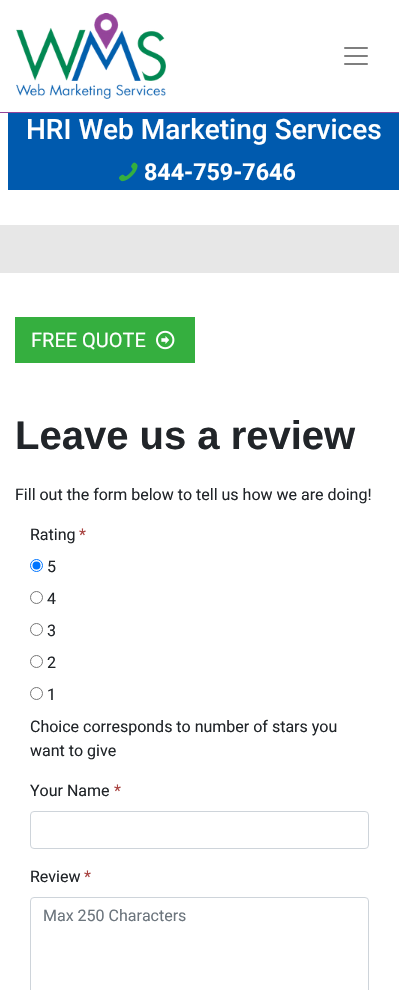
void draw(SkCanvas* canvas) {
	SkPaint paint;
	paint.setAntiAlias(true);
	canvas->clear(0xffffffff);
	paint.setColor(0xff95459a);
	canvas->drawRect(SkRect::MakeXYWH(0, 112, 399, 1), paint);
	canvas->drawImageRect(SkImages::DeferredFromEncodedData(SkData::MakeFromFileName("img1.png")), SkRect::MakeXYWH(16, 13, 150, 86), SkSamplingOptions());
	canvas->drawImageRect(SkImages::DeferredFromEncodedData(SkData::MakeFromFileName("img2.png")), SkRect::MakeXYWH(344, 47, 24, 18), SkSamplingOptions());
	paint.setColor(0xff005aae);
	canvas->drawRect(SkRect::MakeXYWH(8, 113, 391, 77), paint);
	SkFont f1(fontMgr->matchFamilyStyle("Roboto", SkFontStyle(500, SkFontStyle::kNormal_Width, SkFontStyle::kUpright_Slant)), 28);
	f1.setSubpixel(true);
	paint.setColor(0xffffffff);
	canvas->drawString("HRI Web Marketing Services", 26, 139, f1, paint);
	canvas->drawImageRect(SkImages::DeferredFromEncodedData(SkData::MakeFromFileName("img3.png")), SkRect::MakeXYWH(119, 162, 19, 20), SkSamplingOptions());
	SkFont f2(fontMgr->matchFamilyStyle("Roboto", SkFontStyle::Bold()), 23.25);
	f2.setSubpixel(true);
	canvas->drawString("844-759-7646", 144, 180, f2, paint);
	paint.setColor(0xffe7e7e7);
	canvas->drawRect(SkRect::MakeXYWH(0, 225, 399, 48), paint);
	paint.setColor(0xff35af3f);
	canvas->drawRect(SkRect::MakeXYWH(15, 317, 180, 46), paint);
	SkFont f3(fontMgr->matchFamilyStyle("Roboto", SkFontStyle::Normal()), 20);
	f3.setSubpixel(true);
	paint.setColor(0xffffffff);
	canvas->drawString("FREE QUOTE", 31, 347, f3, paint);
	canvas->drawImageRect(SkImages::DeferredFromEncodedData(SkData::MakeFromFileName("img4.png")), SkRect::MakeXYWH(156, 330, 19, 20), SkSamplingOptions());
	SkFont f4(fontMgr->matchFamilyStyle("Liberation Sans", SkFontStyle::Bold()), 40);
	f4.setSubpixel(true);
	paint.setColor(0xff212529);
	canvas->drawString("Leave us a review", 15, 449, f4, paint);
	SkFont f5(fontMgr->matchFamilyStyle("Roboto", SkFontStyle::Normal()), 16);
	f5.setSubpixel(true);
	canvas->drawString("Fill out the form below to tell us how we are doing!", 15, 500, f5, paint);
	canvas->drawString("Rating", 30, 540, f5, paint);
	paint.setColor(0xffa94442);
	canvas->drawString("*", 79, 540, f5, paint);
	paint.setStroke(true);
	paint.setStrokeWidth(1);
	paint.setColor(0xff0075ff);
	canvas->drawCircle(36.5, 565.5, 6, paint);
	paint.setStroke(false);
	canvas->drawCircle(36.5, 565.5, 4, paint);
	paint.setColor(0xff212529);
	canvas->drawString("5", 47, 572, f5, paint);
	paint.setStroke(true);
	paint.setColor(0xff767676);
	canvas->drawCircle(36.5, 597.5, 6, paint);
	paint.setStroke(false);
	paint.setColor(0xff212529);
	canvas->drawString("4", 47, 604, f5, paint);
	paint.setStroke(true);
	paint.setColor(0xff767676);
	canvas->drawCircle(36.5, 629.5, 6, paint);
	paint.setStroke(false);
	paint.setColor(0xff212529);
	canvas->drawString("3", 47, 636, f5, paint);
	paint.setStroke(true);
	paint.setColor(0xff767676);
	canvas->drawCircle(36.5, 661.5, 6, paint);
	paint.setStroke(false);
	paint.setColor(0xff212529);
	canvas->drawString("2", 47, 668, f5, paint);
	paint.setStroke(true);
	paint.setColor(0xff767676);
	canvas->drawCircle(36.5, 693.5, 6, paint);
	paint.setStroke(false);
	paint.setColor(0xff212529);
	canvas->drawString("1", 47, 700, f5, paint);
	canvas->drawString("Choice corresponds to number of stars you", 30, 732, f5, paint);
	canvas->drawString("want to give", 30, 756, f5, paint);
	canvas->drawString("Your Name", 30, 796, f5, paint);
	paint.setColor(0xffa94442);
	canvas->drawString("*", 114, 796, f5, paint);
	paint.setStroke(true);
	paint.setColor(0xffced4da);
	canvas->drawRoundRect(SkRect::MakeXYWH(30.5, 811.5, 338, 37), 3.5, 3.5, paint);
	paint.setStroke(false);
	paint.setColor(0xff212529);
	canvas->drawString("Review", 30, 882, f5, paint);
	paint.setColor(0xffa94442);
	canvas->drawString("*", 84, 882, f5, paint);
	paint.setStroke(true);
	paint.setColor(0xffced4da);
	canvas->drawRoundRect(SkRect::MakeXYWH(30.5, 897.5, 338, 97), 3.5, 3.5, paint);
	paint.setStroke(false);
	paint.setColor(0xff6c757d);
	canvas->drawString("Max 250 Characters", 43, 921, f5, paint);
}
